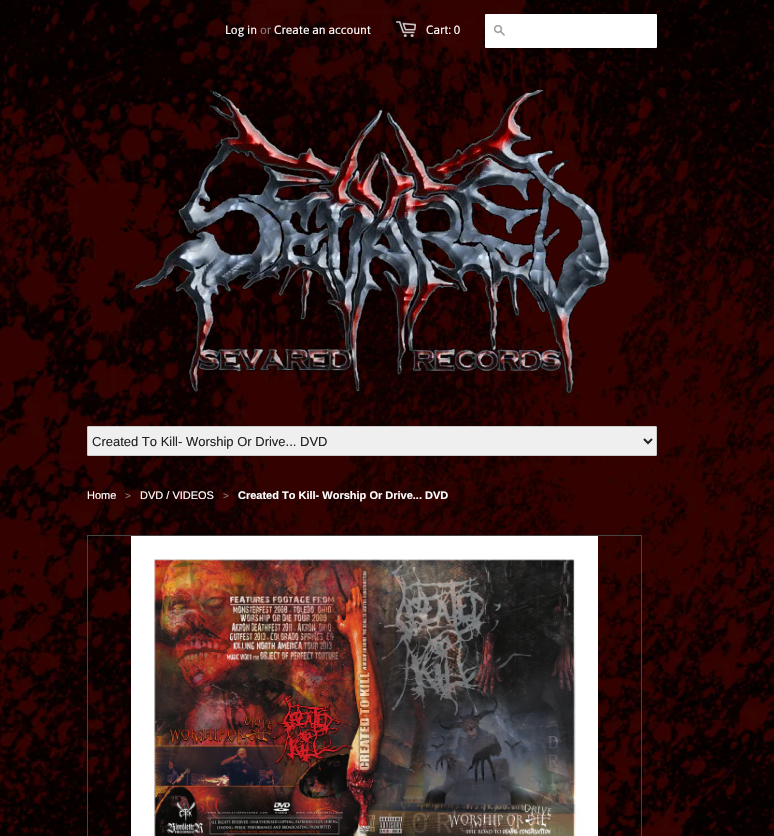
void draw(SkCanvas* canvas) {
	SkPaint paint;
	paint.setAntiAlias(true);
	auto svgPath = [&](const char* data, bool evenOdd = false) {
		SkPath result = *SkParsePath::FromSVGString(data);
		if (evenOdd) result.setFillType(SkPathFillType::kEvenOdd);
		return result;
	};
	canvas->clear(0xffffffff);
	canvas->drawImageRect(SkImages::DeferredFromEncodedData(SkData::MakeFromFileName("img1.png")), SkRect::MakeXYWH(0, 0, 774, 836), SkSamplingOptions());
	SkFont f1(fontMgr->matchFamilyStyle("Asap", SkFontStyle::Normal()), 12);
	f1.setSubpixel(true);
	paint.setColor(0xffffffff);
	canvas->drawString("Log in", 225, 34, f1, paint);
	paint.setColor(0xff888888);
	canvas->drawString("or", 260, 34, f1, paint);
	paint.setColor(0xffffffff);
	canvas->drawString("Create an account", 274, 34, f1, paint);
	canvas->drawImageRect(SkImages::DeferredFromEncodedData(SkData::MakeFromFileName("img2.png")), SkRect::MakeXYWH(396, 21, 20, 16), SkSamplingOptions());
	canvas->drawString("Cart: 0", 426, 34, f1, paint);
	canvas->drawRoundRect(SkRect::MakeXYWH(485, 14, 172, 34), 1, 1, paint);
	canvas->drawImageRect(SkImages::DeferredFromEncodedData(SkData::MakeFromFileName("img3.png")), SkRect::MakeXYWH(494, 25, 11, 11), SkSamplingOptions());
	canvas->drawImageRect(SkImages::DeferredFromEncodedData(SkData::MakeFromFileName("img4.png")), SkRect::MakeXYWH(133, 90, 477, 304), SkSamplingOptions());
	paint.setColor(0xffefefef);
	canvas->drawRoundRect(SkRect::MakeXYWH(87.5, 426.5, 569, 29), 0.5, 0.5, paint);
	paint.setStroke(true);
	paint.setStrokeWidth(1);
	paint.setColor(0xffcccccc);
	canvas->drawRoundRect(SkRect::MakeXYWH(87.5, 426.5, 569, 29), 0.5, 0.5, paint);
	paint.setStrokeWidth(2);
	paint.setColor(0xff222222);
	canvas->drawPath(svgPath("M644 439L648 443L652 439"), paint);
	SkFont f2(fontMgr->matchFamilyStyle("Liberation Sans", SkFontStyle::Normal()), 13);
	f2.setSubpixel(true);
	paint.setStroke(false);
	canvas->drawString("Created To Kill- Worship Or Drive... DVD", 92, 446, f2, paint);
	SkFont f3(fontMgr->matchFamilyStyle("Liberation Sans", SkFontStyle::Normal()), 11);
	f3.setSubpixel(true);
	paint.setColor(0xffffffff);
	canvas->drawString("Home", 87, 499, f3, paint);
	SkFont f4(fontMgr->matchFamilyStyle("Liberation Sans", SkFontStyle::Normal()), 10);
	f4.setSubpixel(true);
	paint.setColor(0xff978080);
	canvas->drawString(">", 125, 499, f4, paint);
	paint.setColor(0xffffffff);
	canvas->drawString("DVD / VIDEOS", 140, 499, f3, paint);
	paint.setColor(0xff978080);
	canvas->drawString(">", 223, 499, f4, paint);
	SkFont f5(fontMgr->matchFamilyStyle("Liberation Sans", SkFontStyle::Bold()), 11);
	f5.setSubpixel(true);
	paint.setColor(0xffffffff);
	canvas->drawString("Created To Kill- Worship Or Drive... DVD", 238, 499, f5, paint);
	paint.setStroke(true);
	paint.setStrokeWidth(1);
	paint.setColor(0xff444444);
	canvas->drawRect(SkRect::MakeXYWH(87.5, 535.5, 554, 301), paint);
	canvas->drawImageRect(SkImages::DeferredFromEncodedData(SkData::MakeFromFileName("img5.png")), SkRect::MakeXYWH(131, 536, 467, 300), SkSamplingOptions());
}
